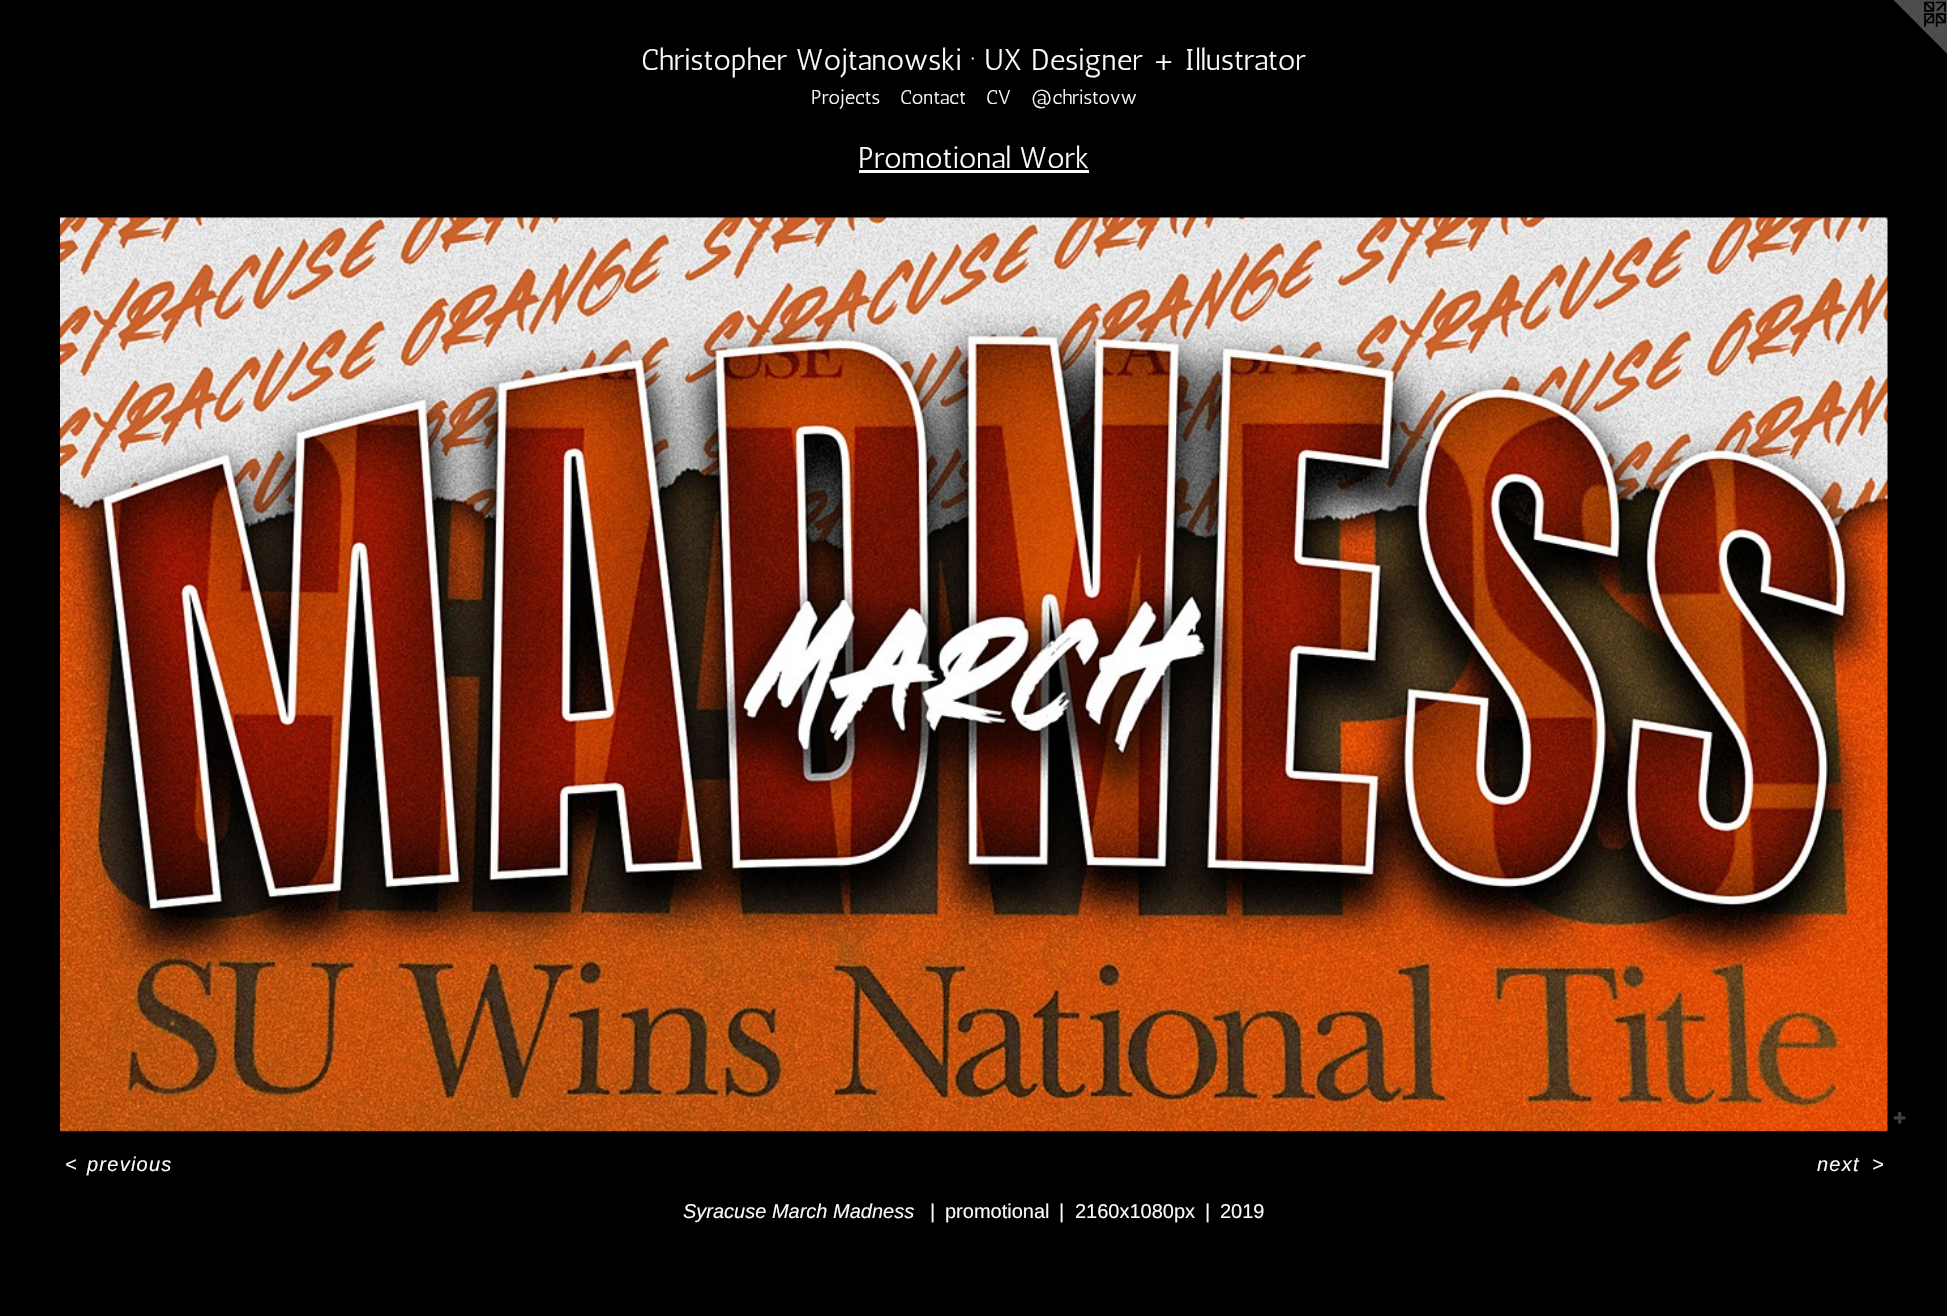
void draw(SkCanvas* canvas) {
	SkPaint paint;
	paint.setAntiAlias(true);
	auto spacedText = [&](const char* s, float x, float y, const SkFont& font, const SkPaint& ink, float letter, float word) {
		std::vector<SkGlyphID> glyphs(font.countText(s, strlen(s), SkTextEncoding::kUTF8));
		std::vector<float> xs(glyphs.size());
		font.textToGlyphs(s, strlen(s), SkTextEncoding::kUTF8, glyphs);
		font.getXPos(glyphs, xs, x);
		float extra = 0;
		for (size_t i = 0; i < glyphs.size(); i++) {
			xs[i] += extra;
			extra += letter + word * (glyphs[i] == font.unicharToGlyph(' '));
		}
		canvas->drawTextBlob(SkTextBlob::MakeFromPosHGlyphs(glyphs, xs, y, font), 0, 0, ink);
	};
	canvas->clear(0xff000000);
	canvas->drawImageRect(SkImages::DeferredFromEncodedData(SkData::MakeFromFileName("img1.png")), SkRect::MakeXYWH(1894, 0, 53, 54), SkSamplingOptions());
	SkFont f1(fontMgr->matchFamilyStyle("Antic", SkFontStyle::Normal()), 30);
	f1.setSubpixel(true);
	paint.setColor(0xfffafafa);
	canvas->drawString("Christopher Wojtanowski · UX Designer + Illustrator", 641, 70, f1, paint);
	SkFont f2(fontMgr->matchFamilyStyle("Antic", SkFontStyle::Normal()), 20);
	f2.setSubpixel(true);
	canvas->drawString("Projects", 811, 104, f2, paint);
	canvas->drawString("Contact", 900, 104, f2, paint);
	canvas->drawString("CV", 986, 104, f2, paint);
	canvas->drawString("@christovw", 1031, 104, f2, paint);
	canvas->drawString("Promotional Work", 858, 168, f1, paint);
	canvas->drawRect(SkRect::MakeXYWH(859, 170, 230, 3), paint);
	canvas->drawImageRect(SkImages::DeferredFromEncodedData(SkData::MakeFromFileName("img2.png")), SkRect::MakeXYWH(60, 217, 1828, 915), SkSamplingOptions());
	canvas->drawImageRect(SkImages::DeferredFromEncodedData(SkData::MakeFromFileName("img3.png")), SkRect::MakeXYWH(1893, 1112, 13, 12), SkSamplingOptions());
	SkFont f3(fontMgr->matchFamilyStyle("Liberation Sans", SkFontStyle::Italic()), 20);
	f3.setSubpixel(true);
	spacedText("<", 65, 1171, f3, paint, 1.25, 0);
	spacedText("previous", 87, 1171, f3, paint, 1.25, 0);
	spacedText("next", 1817, 1171, f3, paint, 1.25, 0);
	spacedText(">", 1872, 1171, f3, paint, 1.25, 0);
	canvas->drawString("Syracuse March Madness", 683, 1218, f3, paint);
	SkFont f4(fontMgr->matchFamilyStyle("Liberation Sans", SkFontStyle::Normal()), 20);
	f4.setSubpixel(true);
	canvas->drawString("|", 930, 1218, f4, paint);
	canvas->drawString("promotional", 945, 1218, f4, paint);
	canvas->drawString("|", 1059, 1218, f4, paint);
	canvas->drawString("2160x1080px", 1075, 1218, f4, paint);
	canvas->drawString("|", 1205, 1218, f4, paint);
	canvas->drawString("2019", 1220, 1218, f4, paint);
}
